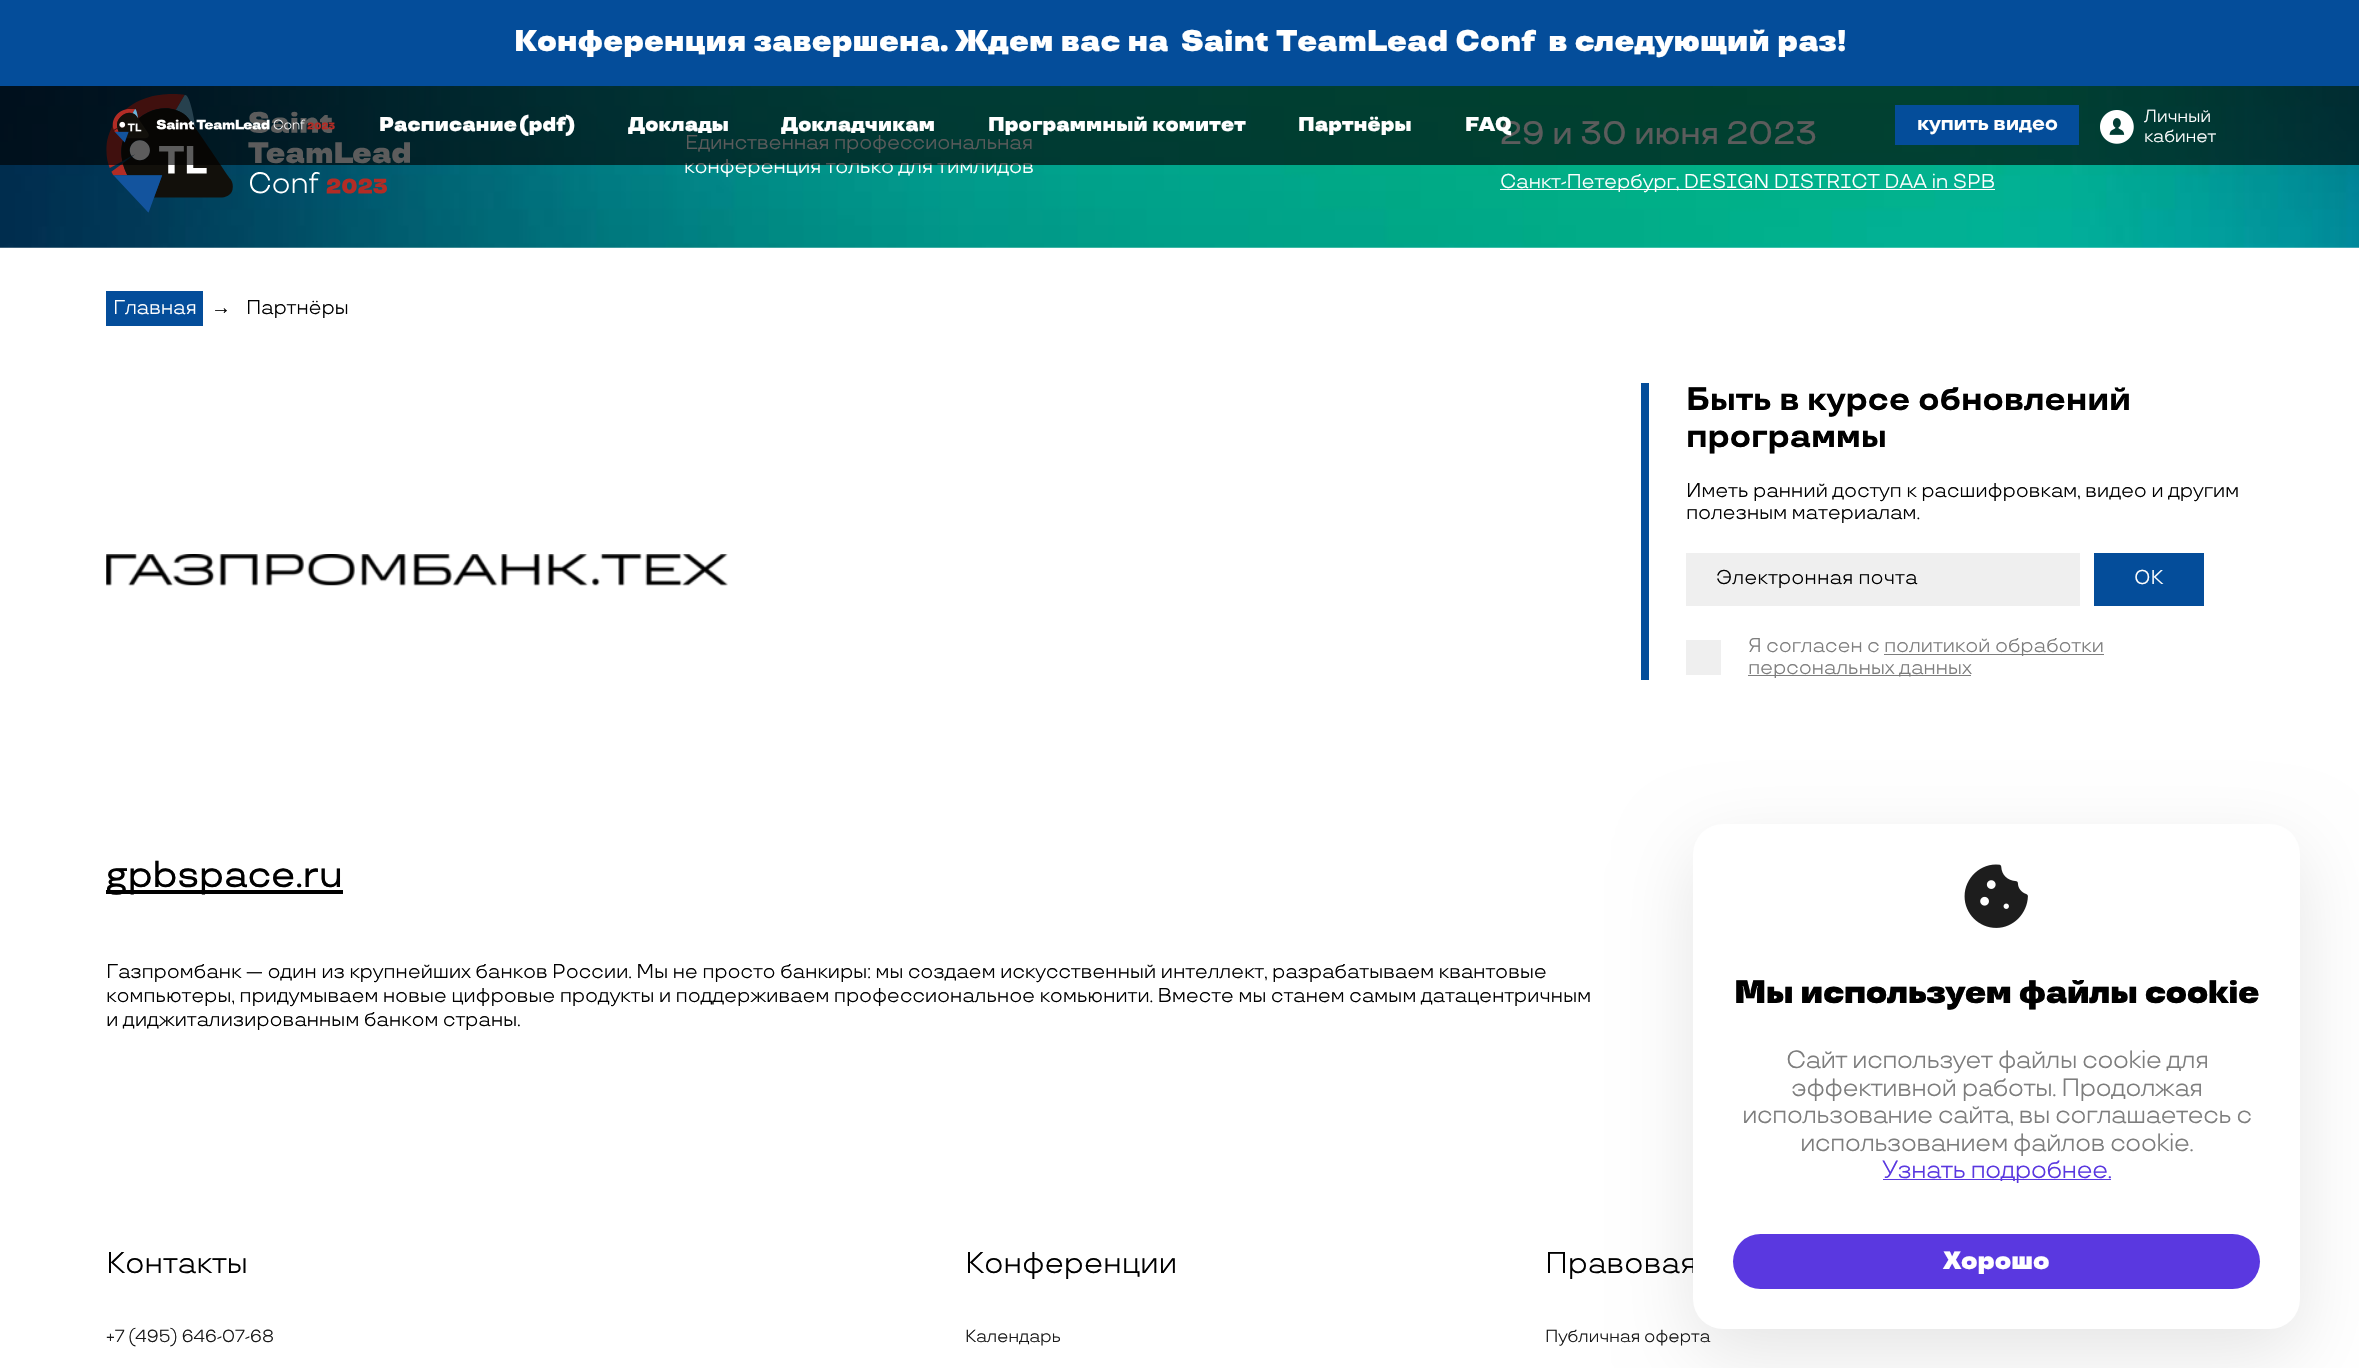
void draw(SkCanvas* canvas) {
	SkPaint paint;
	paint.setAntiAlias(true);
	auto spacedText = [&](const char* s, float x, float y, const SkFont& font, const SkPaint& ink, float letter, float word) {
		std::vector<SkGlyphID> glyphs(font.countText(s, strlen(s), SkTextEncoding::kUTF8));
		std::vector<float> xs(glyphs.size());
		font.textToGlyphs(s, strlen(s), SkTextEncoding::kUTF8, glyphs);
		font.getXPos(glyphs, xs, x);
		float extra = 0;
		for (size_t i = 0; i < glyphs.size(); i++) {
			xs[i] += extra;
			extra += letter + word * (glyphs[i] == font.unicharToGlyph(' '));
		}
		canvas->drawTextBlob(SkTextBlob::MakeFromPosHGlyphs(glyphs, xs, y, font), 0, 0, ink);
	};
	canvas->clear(0xffffffff);
	canvas->drawImageRect(SkImages::DeferredFromEncodedData(SkData::MakeFromFileName("img3.png")), SkRect::MakeXYWH(0, 86, 2359, 162), SkSamplingOptions());
	canvas->drawImageRect(SkImages::DeferredFromEncodedData(SkData::MakeFromFileName("img4.png")), SkRect::MakeXYWH(106, 94, 304, 119), SkSamplingOptions());
	SkFont f1(fontMgr->matchFamilyStyle("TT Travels", SkFontStyle::Normal()), 20);
	f1.setSubpixel(true);
	paint.setColor(0xffffffff);
	spacedText("Единственная профессиональная", 685, 149, f1, paint, -0.25, 0);
	spacedText("конференция только для тимлидов", 684, 173, f1, paint, -0.25, 0);
	SkFont f2(fontMgr->matchFamilyStyle("TT Travels", SkFontStyle(500, SkFontStyle::kNormal_Width, SkFontStyle::kUpright_Slant)), 32.5);
	f2.setSubpixel(true);
	spacedText("29 и 30 июня 2023", 1500, 144, f2, paint, -0.25, 0);
	paint.setColor(0xa3000000);
	canvas->drawRect(SkRect::MakeXYWH(0, 86, 2359, 79), paint);
	paint.setColor(0xff044d9a);
	canvas->drawRect(SkRect::MakeXYWH(0, 0, 2359, 86), paint);
	SkFont f3(fontMgr->matchFamilyStyle("TT Travels", SkFontStyle(900, SkFontStyle::kNormal_Width, SkFontStyle::kUpright_Slant)), 30);
	f3.setSubpixel(true);
	paint.setColor(0xffffffff);
	spacedText("Конференция завершена. Ждем вас на", 514, 51, f3, paint, -0.25, 0);
	spacedText("Saint TeamLead Conf", 1181, 51, f3, paint, -0.25, 0);
	spacedText("в следующий раз!", 1548, 51, f3, paint, -0.25, 0);
	canvas->drawImageRect(SkImages::DeferredFromEncodedData(SkData::MakeFromFileName("img1.png")), SkRect::MakeXYWH(112, 109, 223, 34), SkSamplingOptions());
	SkFont f4(fontMgr->matchFamilyStyle("TT Travels", SkFontStyle(900, SkFontStyle::kNormal_Width, SkFontStyle::kUpright_Slant)), 20);
	f4.setSubpixel(true);
	spacedText("Расписание", 379, 131, f4, paint, -0.25, 0);
	spacedText("(pdf)", 519, 131, f4, paint, -0.25, 0);
	spacedText("Доклады", 628, 131, f4, paint, -0.25, 0);
	spacedText("Докладчикам", 781, 131, f4, paint, -0.25, 0);
	spacedText("Программный комитет", 988, 131, f4, paint, -0.25, 0);
	spacedText("Партнёры", 1298, 131, f4, paint, -0.25, 0);
	spacedText("FAQ", 1465, 131, f4, paint, -0.25, 0);
	paint.setColor(0xff044d9a);
	canvas->drawRect(SkRect::MakeXYWH(1895, 105, 184, 40), paint);
	SkFont f5(fontMgr->matchFamilyStyle("TT Travels", SkFontStyle::Bold()), 20);
	f5.setSubpixel(true);
	paint.setColor(0xffffffff);
	spacedText("купить видео", 1917, 130, f5, paint, -0.25, 0);
	canvas->drawImageRect(SkImages::DeferredFromEncodedData(SkData::MakeFromFileName("img2.png")), SkRect::MakeXYWH(2100, 110, 34, 34), SkSamplingOptions());
	SkFont f6(fontMgr->matchFamilyStyle("TT Travels", SkFontStyle::Normal()), 17.5);
	f6.setSubpixel(true);
	spacedText("Личный", 2144, 122, f6, paint, -0.25, 0);
	spacedText("кабинет", 2144, 142, f6, paint, -0.25, 0);
	canvas->drawRect(SkRect::MakeXYWH(1500, 189, 495, 1), paint);
	spacedText("Санкт-Петербург, DESIGN DISTRICT DAA in SPB", 1500, 188, f1, paint, -0.25, 0);
	paint.setColor(0xff044d9a);
	canvas->drawRect(SkRect::MakeXYWH(106, 291, 97, 35), paint);
	paint.setColor(0xffffffff);
	spacedText("Главная", 113, 314, f1, paint, -0.25, 0);
	SkFont f7(fontMgr->matchFamilyStyle("Liberation Sans", SkFontStyle::Normal()), 20);
	f7.setSubpixel(true);
	paint.setColor(0xff000000);
	spacedText("→", 211, 314, f7, paint, -0.25, 0);
	spacedText("Партнёры", 246, 314, f1, paint, -0.25, 0);
	paint.setColor(0xff044d9a);
	canvas->drawRect(SkRect::MakeXYWH(1641, 383, 8, 297), paint);
	SkFont f8(fontMgr->matchFamilyStyle("TT Travels", SkFontStyle::Bold()), 32.5);
	f8.setSubpixel(true);
	paint.setColor(0xff000000);
	spacedText("Быть в курсе обновлений", 1686, 410, f8, paint, -0.25, 0);
	spacedText("программы", 1686, 447, f8, paint, -0.25, 0);
	spacedText("Иметь ранний доступ к расшифровкам, видео и другим", 1686, 497, f1, paint, -0.25, 0);
	spacedText("полезным материалам.", 1686, 519, f1, paint, -0.25, 0);
	paint.setColor(0xffefefef);
	canvas->drawRect(SkRect::MakeXYWH(1686, 553, 394, 53), paint);
	paint.setColor(0xff000000);
	canvas->drawString("Электронная почта", 1716, 584, f1, paint);
	paint.setColor(0xff044d9a);
	canvas->drawRect(SkRect::MakeXYWH(2094, 553, 110, 53), paint);
	paint.setColor(0xffffffff);
	canvas->drawString("ОК", 2134, 584, f1, paint);
	paint.setColor(0xffefefef);
	canvas->drawRect(SkRect::MakeXYWH(1686, 640, 35, 35), paint);
	paint.setColor(0xff7d7d7d);
	spacedText("Я согласен с", 1748, 652, f1, paint, -0.25, 0);
	canvas->drawRect(SkRect::MakeXYWH(1884, 654, 220, 1), paint);
	spacedText("политикой обработки", 1884, 652, f1, paint, -0.25, 0);
	canvas->drawRect(SkRect::MakeXYWH(1748, 675, 223, 1), paint);
	spacedText("персональных данных", 1748, 674, f1, paint, -0.25, 0);
	canvas->drawImageRect(SkImages::DeferredFromEncodedData(SkData::MakeFromFileName("img5.png")), SkRect::MakeXYWH(106, 554, 622, 32), SkSamplingOptions());
	paint.setColor(0xff000000);
	canvas->drawRect(SkRect::MakeXYWH(106, 890, 237, 4), paint);
	SkFont f9(fontMgr->matchFamilyStyle("TT Travels", SkFontStyle(500, SkFontStyle::kNormal_Width, SkFontStyle::kUpright_Slant)), 37.5);
	f9.setSubpixel(true);
	spacedText("gpbspace.ru", 106, 887, f9, paint, -0.25, 0);
	spacedText("Газпромбанк — один из крупнейших банков России. Мы не просто банкиры: мы создаем искусственный интеллект, разрабатываем квантовые", 106, 978, f1, paint, -0.25, 0);
	spacedText("компьютеры, придумываем новые цифровые продукты и поддерживаем профессиональное комьюнити. Вместе мы станем самым датацентричным", 106, 1002, f1, paint, -0.25, 0);
	spacedText("и диджитализированным банком страны.", 106, 1026, f1, paint, -0.25, 0);
	SkFont f10(fontMgr->matchFamilyStyle("TT Travels", SkFontStyle::Normal()), 30);
	f10.setSubpixel(true);
	spacedText("Контакты", 106, 1273, f10, paint, -0.25, 0);
	paint.setColor(0xff1a1a1a);
	spacedText("+7 (495) 646-07-68", 106, 1342, f6, paint, -0.25, 0);
	paint.setColor(0xff000000);
	spacedText("Конференции", 965, 1273, f10, paint, -0.25, 0);
	paint.setColor(0xff1a1a1a);
	spacedText("Календарь", 965, 1342, f6, paint, -0.25, 0);
	paint.setColor(0xff000000);
	spacedText("Правовая", 1545, 1273, f10, paint, -0.25, 0);
	paint.setColor(0xff1a1a1a);
	spacedText("Публичная оферта", 1545, 1342, f6, paint, -0.25, 0);
	paint.setColor(0x1a000000);
	paint.setMaskFilter(SkMaskFilter::MakeBlur(kNormal_SkBlurStyle, 37.5));
	canvas->drawRoundRect(SkRect::MakeXYWH(1693, 849, 607, 505), 30, 30, paint);
	paint.setMaskFilter(nullptr);
	paint.setColor(0xffffffff);
	canvas->drawRoundRect(SkRect::MakeXYWH(1693, 824, 607, 505), 30, 30, paint);
	canvas->drawImageRect(SkImages::DeferredFromEncodedData(SkData::MakeFromFileName("img6.png")), SkRect::MakeXYWH(1964, 864, 64, 64), SkSamplingOptions());
	SkFont f11(fontMgr->matchFamilyStyle("TT Travels", SkFontStyle(900, SkFontStyle::kNormal_Width, SkFontStyle::kUpright_Slant)), 32.5);
	f11.setSubpixel(true);
	paint.setColor(0xff000000);
	spacedText("Мы используем файлы cookie", 1734, 1003, f11, paint, -1, 0);
	SkFont f12(fontMgr->matchFamilyStyle("TT Travels", SkFontStyle::Normal()), 24.9);
	f12.setSubpixel(true);
	paint.setColor(0xff7d7d7d);
	spacedText("Сайт использует файлы cookie для", 1786, 1068, f12, paint, -0.75, 0);
	spacedText("эффективной работы. Продолжая", 1791, 1096, f12, paint, -0.75, 0);
	spacedText("использование сайта, вы соглашаетесь с", 1742, 1123, f12, paint, -0.75, 0);
	spacedText("использованием файлов cookie.", 1800, 1151, f12, paint, -0.75, 0);
	paint.setColor(0xff5a38e0);
	canvas->drawRect(SkRect::MakeXYWH(1883, 1179, 228, 1), paint);
	spacedText("Узнать подробнее.", 1882, 1178, f12, paint, -0.75, 0);
	canvas->drawRoundRect(SkRect::MakeXYWH(1733, 1234, 527, 55), 27.5, 27.5, paint);
	SkFont f13(fontMgr->matchFamilyStyle("TT Travels", SkFontStyle(900, SkFontStyle::kNormal_Width, SkFontStyle::kUpright_Slant)), 25);
	f13.setSubpixel(true);
	paint.setColor(0xffffffff);
	spacedText("Хорошо", 1943, 1269, f13, paint, -0.5, 0);
}
